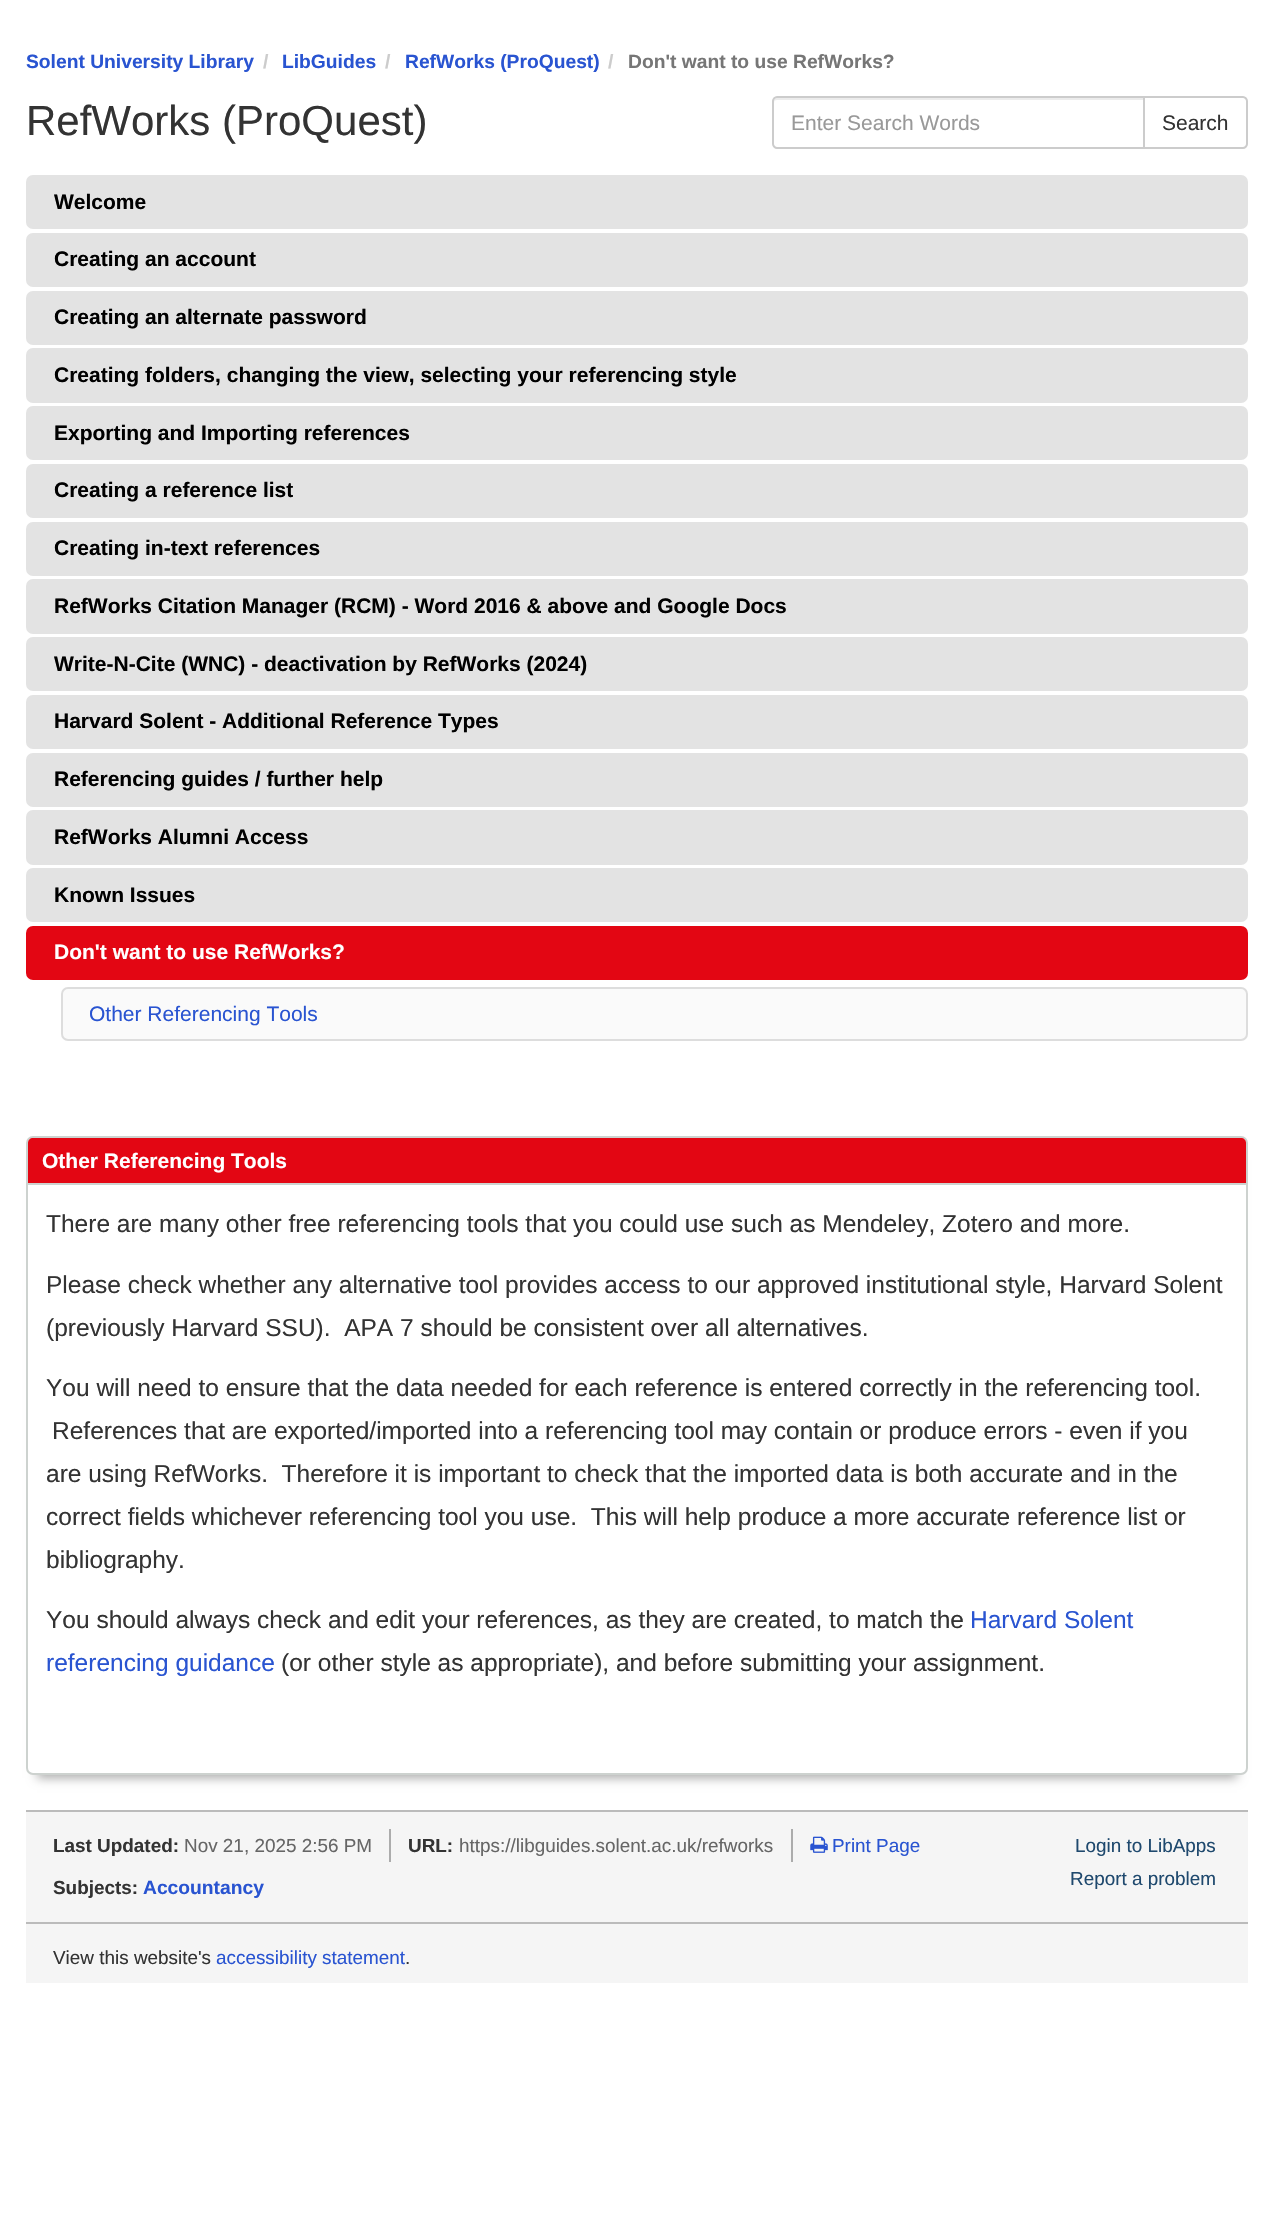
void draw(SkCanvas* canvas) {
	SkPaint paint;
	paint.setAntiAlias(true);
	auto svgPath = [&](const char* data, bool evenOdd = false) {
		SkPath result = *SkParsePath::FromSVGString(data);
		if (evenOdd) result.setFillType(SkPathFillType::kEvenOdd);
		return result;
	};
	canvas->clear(0xffffffff);
	SkFont f1(fontMgr->matchFamilyStyle("Liberation Sans", SkFontStyle::Bold()), 19.25);
	f1.setSubpixel(true);
	paint.setColor(0xff2954d1);
	canvas->drawString("Solent University Library", 26, 68, f1, paint);
	paint.setColor(0xffcccccc);
	canvas->drawString("/", 263, 68, f1, paint);
	paint.setColor(0xff2954d1);
	canvas->drawString("LibGuides", 282, 68, f1, paint);
	paint.setColor(0xffcccccc);
	canvas->drawString("/", 385, 68, f1, paint);
	paint.setColor(0xff2954d1);
	canvas->drawString("RefWorks (ProQuest)", 405, 68, f1, paint);
	paint.setColor(0xffcccccc);
	canvas->drawString("/", 608, 68, f1, paint);
	paint.setColor(0xff767676);
	canvas->drawString("Don't want to use RefWorks?", 628, 68, f1, paint);
	SkFont f2(fontMgr->matchFamilyStyle("Liberation Sans", SkFontStyle::Normal()), 42);
	f2.setSubpixel(true);
	paint.setColor(0xff333333);
	canvas->drawString("RefWorks (ProQuest)", 26, 135, f2, paint);
	paint.setColor(0xffececec);
	canvas->drawPath(svgPath("M777 100H1143V98H778C775 98 774 100 774 103C774 101 775 100 777 100Z"), paint);
	paint.setStroke(true);
	paint.setStrokeWidth(2);
	paint.setColor(0xffcccccc);
	canvas->drawPath(svgPath("M777 97H1144V148H777C775 148 773 146 773 144V101C773 99 775 97 777 97Z"), paint);
	SkFont f3(fontMgr->matchFamilyStyle("Liberation Sans", SkFontStyle::Normal()), 21);
	f3.setSubpixel(true);
	paint.setStroke(false);
	paint.setColor(0xff999999);
	canvas->drawString("Enter Search Words", 791, 130, f3, paint);
	paint.setColor(0xffffffff);
	canvas->drawPath(svgPath("M1144 97H1243C1245 97 1247 99 1247 101V144C1247 146 1245 148 1243 148H1144Z"), paint);
	paint.setStroke(true);
	paint.setColor(0xffcccccc);
	canvas->drawPath(svgPath("M1144 97H1243C1245 97 1247 99 1247 101V144C1247 146 1245 148 1243 148H1144Z"), paint);
	paint.setStroke(false);
	paint.setColor(0xff333333);
	canvas->drawString("Search", 1162, 130, f3, paint);
	paint.setColor(0xffe3e3e3);
	canvas->drawRoundRect(SkRect::MakeXYWH(26, 175, 1222, 54), 7, 7, paint);
	SkFont f4(fontMgr->matchFamilyStyle("Liberation Sans", SkFontStyle::Bold()), 21);
	f4.setSubpixel(true);
	paint.setColor(0xff000000);
	canvas->drawString("Welcome", 54, 209, f4, paint);
	paint.setColor(0xffe3e3e3);
	canvas->drawRoundRect(SkRect::MakeXYWH(26, 233, 1222, 54), 7, 7, paint);
	paint.setColor(0xff000000);
	canvas->drawString("Creating an account", 54, 266, f4, paint);
	paint.setColor(0xffe3e3e3);
	canvas->drawRoundRect(SkRect::MakeXYWH(26, 291, 1222, 54), 7, 7, paint);
	paint.setColor(0xff000000);
	canvas->drawString("Creating an alternate password", 54, 324, f4, paint);
	paint.setColor(0xffe3e3e3);
	canvas->drawRoundRect(SkRect::MakeXYWH(26, 348, 1222, 55), 7, 7, paint);
	paint.setColor(0xff000000);
	canvas->drawString("Creating folders, changing the view, selecting your referencing style", 54, 382, f4, paint);
	paint.setColor(0xffe3e3e3);
	canvas->drawRoundRect(SkRect::MakeXYWH(26, 406, 1222, 54), 7, 7, paint);
	paint.setColor(0xff000000);
	canvas->drawString("Exporting and Importing references", 54, 440, f4, paint);
	paint.setColor(0xffe3e3e3);
	canvas->drawRoundRect(SkRect::MakeXYWH(26, 464, 1222, 54), 7, 7, paint);
	paint.setColor(0xff000000);
	canvas->drawString("Creating a reference list", 54, 497, f4, paint);
	paint.setColor(0xffe3e3e3);
	canvas->drawRoundRect(SkRect::MakeXYWH(26, 522, 1222, 54), 7, 7, paint);
	paint.setColor(0xff000000);
	canvas->drawString("Creating in-text references", 54, 555, f4, paint);
	paint.setColor(0xffe3e3e3);
	canvas->drawRoundRect(SkRect::MakeXYWH(26, 579, 1222, 55), 7, 7, paint);
	paint.setColor(0xff000000);
	canvas->drawString("RefWorks Citation Manager (RCM) - Word 2016 & above and Google Docs", 54, 613, f4, paint);
	paint.setColor(0xffe3e3e3);
	canvas->drawRoundRect(SkRect::MakeXYWH(26, 637, 1222, 54), 7, 7, paint);
	paint.setColor(0xff000000);
	canvas->drawString("Write-N-Cite (WNC) - deactivation by RefWorks (2024)", 54, 671, f4, paint);
	paint.setColor(0xffe3e3e3);
	canvas->drawRoundRect(SkRect::MakeXYWH(26, 695, 1222, 54), 7, 7, paint);
	paint.setColor(0xff000000);
	canvas->drawString("Harvard Solent - Additional Reference Types", 54, 728, f4, paint);
	paint.setColor(0xffe3e3e3);
	canvas->drawRoundRect(SkRect::MakeXYWH(26, 753, 1222, 54), 7, 7, paint);
	paint.setColor(0xff000000);
	canvas->drawString("Referencing guides / further help", 54, 786, f4, paint);
	paint.setColor(0xffe3e3e3);
	canvas->drawRoundRect(SkRect::MakeXYWH(26, 810, 1222, 55), 7, 7, paint);
	paint.setColor(0xff000000);
	canvas->drawString("RefWorks Alumni Access", 54, 844, f4, paint);
	paint.setColor(0xffe3e3e3);
	canvas->drawRoundRect(SkRect::MakeXYWH(26, 868, 1222, 54), 7, 7, paint);
	paint.setColor(0xff000000);
	canvas->drawString("Known Issues", 54, 902, f4, paint);
	paint.setColor(0xffe30613);
	canvas->drawRoundRect(SkRect::MakeXYWH(26, 926, 1222, 54), 7, 7, paint);
	paint.setColor(0xffffffff);
	canvas->drawString("Don't want to use RefWorks?", 54, 959, f4, paint);
	paint.setColor(0xfffafafa);
	canvas->drawRoundRect(SkRect::MakeXYWH(62, 988, 1185, 52), 6, 6, paint);
	paint.setStroke(true);
	paint.setColor(0xffdddddd);
	canvas->drawRoundRect(SkRect::MakeXYWH(62, 988, 1185, 52), 6, 6, paint);
	paint.setStroke(false);
	paint.setColor(0xff2954d1);
	canvas->drawString("Other Referencing Tools", 89, 1021, f3, paint);
	paint.setColor(0xffaaaaaa);
	paint.setMaskFilter(SkMaskFilter::MakeBlur(kNormal_SkBlurStyle, 5));
	canvas->drawRect(SkRect::MakeXYWH(37, 1160, 1200, 618), paint);
	paint.setMaskFilter(nullptr);
	paint.setColor(0xffffffff);
	canvas->drawRoundRect(SkRect::MakeXYWH(27, 1137, 1220, 637), 6, 6, paint);
	paint.setStroke(true);
	paint.setColor(0xffcdd2cf);
	canvas->drawRoundRect(SkRect::MakeXYWH(27, 1137, 1220, 637), 6, 6, paint);
	paint.setStroke(false);
	paint.setColor(0xffe30613);
	canvas->drawPath(svgPath("M33 1138H1241C1244 1138 1246 1140 1246 1143V1185H28V1143C28 1140 30 1138 33 1138Z"), paint);
	paint.setColor(0xffcdd2cf);
	canvas->drawRect(SkRect::MakeXYWH(28, 1183, 1218, 2), paint);
	paint.setColor(0xffffffff);
	canvas->drawString("Other Referencing Tools", 42, 1168, f4, paint);
	SkFont f5(fontMgr->matchFamilyStyle("Liberation Sans", SkFontStyle::Normal()), 24.5);
	f5.setSubpixel(true);
	paint.setColor(0xff333333);
	canvas->drawString("There are many other free referencing tools that you could use such as Mendeley, Zotero and more.", 46, 1232, f5, paint);
	canvas->drawString("Please check whether any alternative tool provides access to our approved institutional style, Harvard Solent", 46, 1293, f5, paint);
	canvas->drawString("(previously Harvard SSU).  APA 7 should be consistent over all alternatives.", 46, 1336, f5, paint);
	canvas->drawString("You will need to ensure that the data needed for each reference is entered correctly in the referencing tool.", 46, 1396, f5, paint);
	canvas->drawString("References that are exported/imported into a referencing tool may contain or produce errors - even if you", 52, 1439, f5, paint);
	canvas->drawString("are using RefWorks.  Therefore it is important to check that the imported data is both accurate and in the", 46, 1482, f5, paint);
	canvas->drawString("correct fields whichever referencing tool you use.  This will help produce a more accurate reference list or", 46, 1525, f5, paint);
	canvas->drawString("bibliography.", 46, 1568, f5, paint);
	canvas->drawString("You should always check and edit your references, as they are created, to match the", 46, 1628, f5, paint);
	paint.setColor(0xff2954d1);
	canvas->drawString("Harvard Solent", 970, 1628, f5, paint);
	canvas->drawString("referencing guidance", 46, 1671, f5, paint);
	paint.setColor(0xff333333);
	canvas->drawString("(or other style as appropriate), and before submitting your assignment.", 281, 1671, f5, paint);
	paint.setColor(0xfff5f5f5);
	canvas->drawRect(SkRect::MakeXYWH(26, 1812, 1222, 110), paint);
	paint.setColor(0xffbbbbbb);
	canvas->drawRect(SkRect::MakeXYWH(26, 1810, 1222, 2), paint);
	paint.setColor(0xffacacac);
	canvas->drawRect(SkRect::MakeXYWH(389, 1829, 2, 33), paint);
	SkFont f6(fontMgr->matchFamilyStyle("Liberation Sans", SkFontStyle::Bold()), 18.9);
	f6.setSubpixel(true);
	paint.setColor(0xff333333);
	canvas->drawString("Last Updated:", 53, 1852, f6, paint);
	SkFont f7(fontMgr->matchFamilyStyle("Liberation Sans", SkFontStyle::Normal()), 18.9);
	f7.setSubpixel(true);
	paint.setColor(0xff666666);
	canvas->drawString("Nov 21, 2025 2:56 PM", 184, 1852, f7, paint);
	paint.setColor(0xffacacac);
	canvas->drawRect(SkRect::MakeXYWH(791, 1829, 2, 33), paint);
	paint.setColor(0xff333333);
	canvas->drawString("URL:", 408, 1852, f6, paint);
	paint.setColor(0xff666666);
	canvas->drawString("https://libguides.solent.ac.uk/refworks", 459, 1852, f7, paint);
	canvas->drawImageRect(SkImages::DeferredFromEncodedData(SkData::MakeFromFileName("img1.png")), SkRect::MakeXYWH(810, 1836, 18, 17), SkSamplingOptions());
	paint.setColor(0xff2954d1);
	canvas->drawString("Print Page", 832, 1852, f7, paint);
	paint.setColor(0xff1f496e);
	canvas->drawString("Login to LibApps", 1075, 1852, f7, paint);
	paint.setColor(0xff333333);
	canvas->drawString("Subjects:", 53, 1894, f6, paint);
	paint.setColor(0xff2954d1);
	canvas->drawString("Accountancy", 143, 1894, f1, paint);
	paint.setColor(0xff1f496e);
	canvas->drawString("Report a problem", 1070, 1885, f7, paint);
	paint.setColor(0xfff5f5f5);
	canvas->drawRect(SkRect::MakeXYWH(26, 1924, 1222, 59), paint);
	paint.setColor(0xffbbbbbb);
	canvas->drawRect(SkRect::MakeXYWH(26, 1922, 1222, 2), paint);
	paint.setColor(0xff333333);
	canvas->drawString("View this website's", 53, 1964, f7, paint);
	paint.setColor(0xff2954d1);
	canvas->drawString("accessibility statement", 216, 1964, f7, paint);
	paint.setColor(0xff333333);
	canvas->drawString(".", 405, 1964, f7, paint);
}
